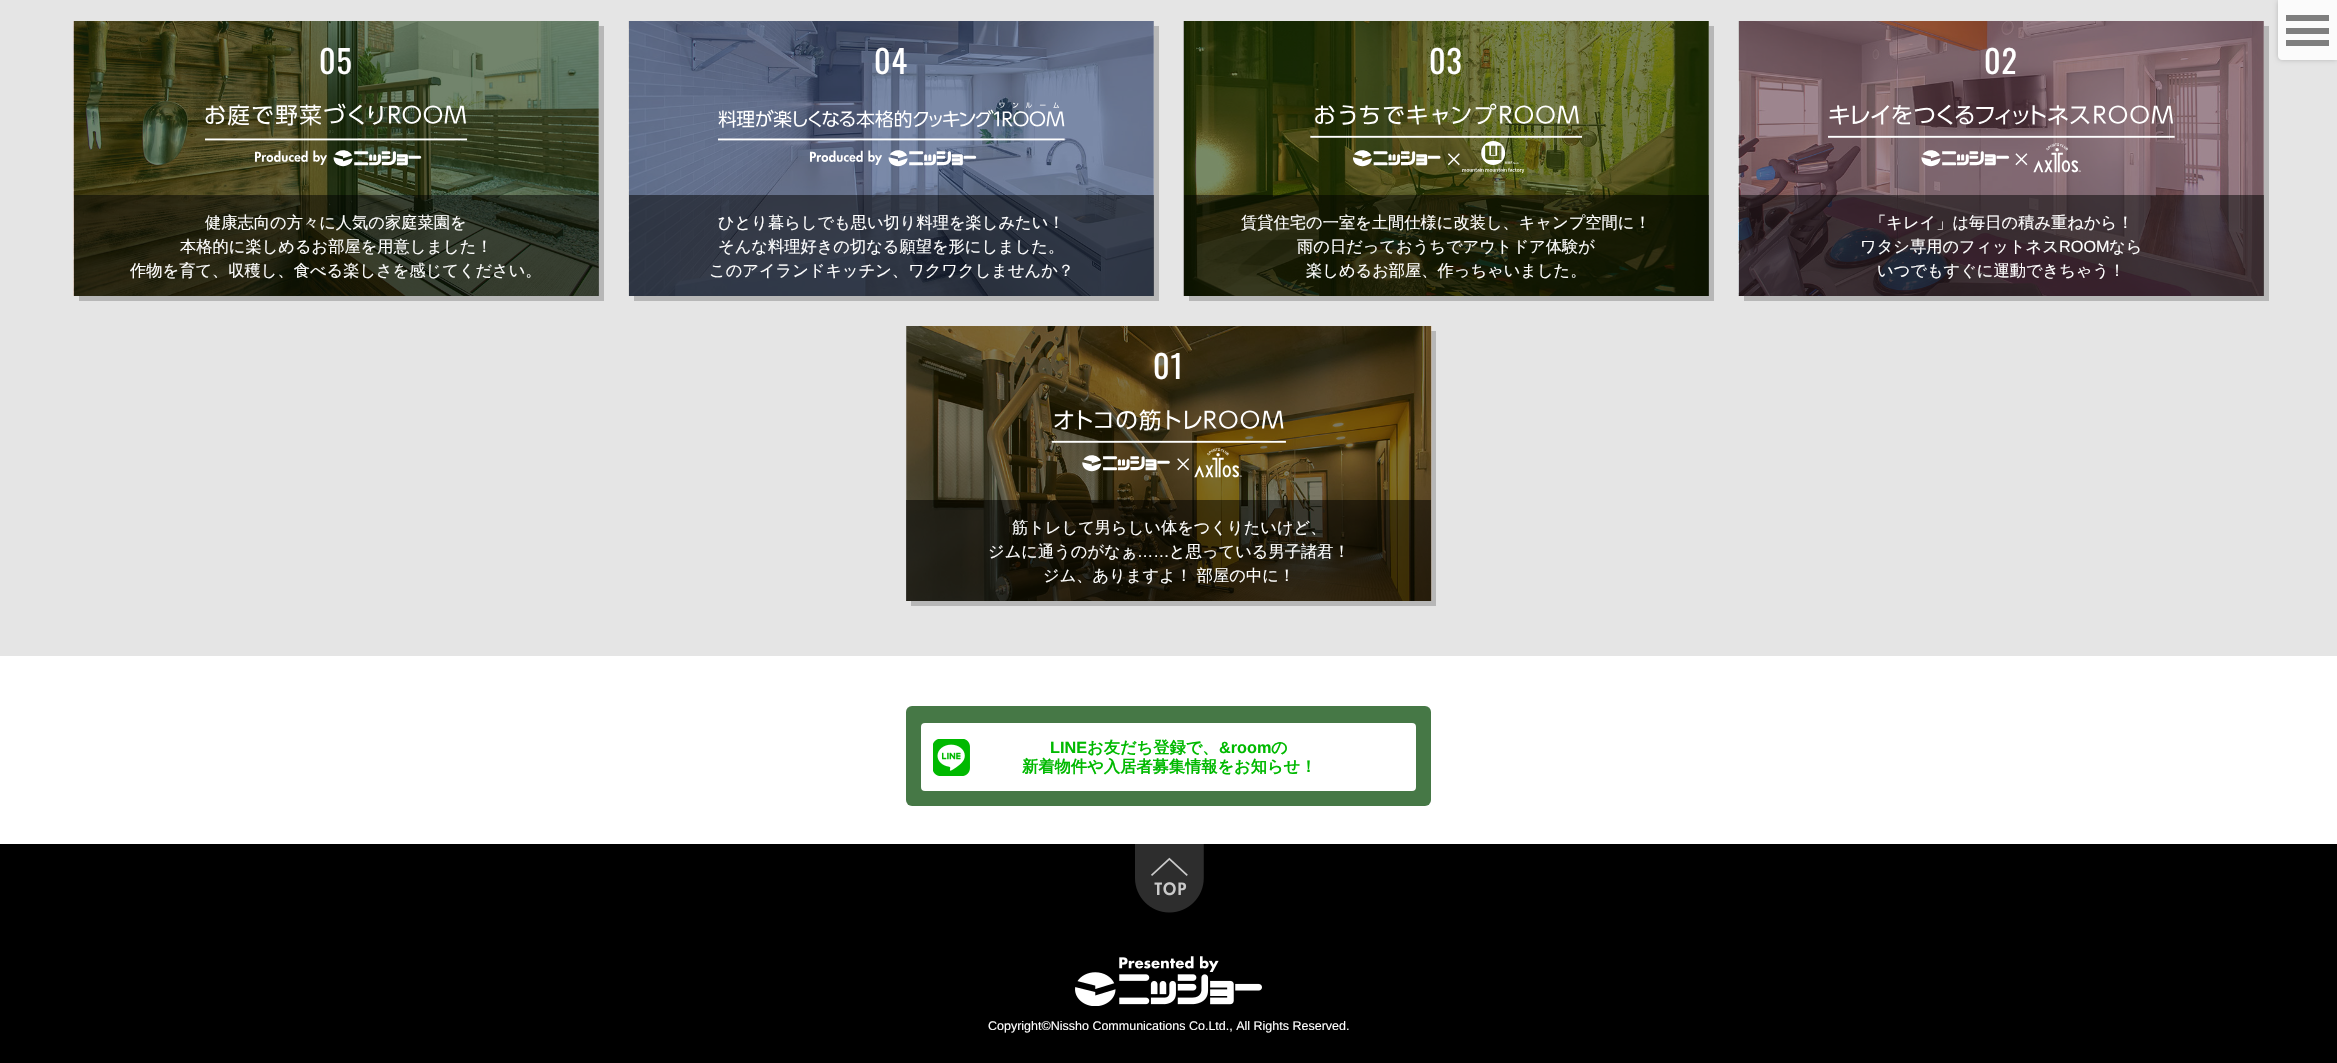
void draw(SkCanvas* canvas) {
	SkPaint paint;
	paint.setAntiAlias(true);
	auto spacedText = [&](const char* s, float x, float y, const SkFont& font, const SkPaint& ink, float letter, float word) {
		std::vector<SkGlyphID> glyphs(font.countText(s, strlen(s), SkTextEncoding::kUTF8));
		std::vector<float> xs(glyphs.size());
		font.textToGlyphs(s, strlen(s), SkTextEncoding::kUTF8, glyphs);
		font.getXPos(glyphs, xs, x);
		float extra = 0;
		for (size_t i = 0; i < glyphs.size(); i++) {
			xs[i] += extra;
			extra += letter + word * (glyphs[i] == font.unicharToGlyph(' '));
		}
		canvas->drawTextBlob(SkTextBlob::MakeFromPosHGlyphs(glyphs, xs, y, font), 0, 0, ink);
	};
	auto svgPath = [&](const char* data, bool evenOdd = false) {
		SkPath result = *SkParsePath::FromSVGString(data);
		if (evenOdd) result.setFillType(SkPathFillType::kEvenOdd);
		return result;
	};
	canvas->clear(0xffffffff);
	paint.setColor(0xffe5e5e5);
	canvas->drawRect(SkRect::MakeXYWH(0, 0, 2337, 656), paint);
	paint.setColor(0x33000000);
	paint.setMaskFilter(SkMaskFilter::MakeBlur(kNormal_SkBlurStyle, 2.5));
	canvas->drawRoundRect(SkRect::MakeXYWH(2278, 0, 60, 60), 4, 4, paint);
	paint.setMaskFilter(nullptr);
	paint.setColor(0xfffbfbfb);
	canvas->drawPath(svgPath("M2278 0H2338V60H2282C2280 60 2278 58 2278 56Z"), paint);
	paint.setColor(0xff7e7e7e);
	canvas->drawRect(SkRect::MakeXYWH(2286, 28, 43, 6), paint);
	canvas->drawRect(SkRect::MakeXYWH(2286, 15, 43, 6), paint);
	canvas->drawRect(SkRect::MakeXYWH(2286, 40, 43, 6), paint);
	paint.setColor(0xffb7b7b7);
	canvas->drawPath(svgPath("M79 296V301H604V26H599V296Z"), paint);
	canvas->drawImageRect(SkImages::DeferredFromEncodedData(SkData::MakeFromFileName("img1.png")), SkRect::MakeXYWH(73, 21, 526, 275), SkSamplingOptions());
	SkFont f1(fontMgr->matchFamilyStyle("Oswald", SkFontStyle::Normal()), 32);
	f1.setSubpixel(true);
	paint.setColor(0xffffffff);
	spacedText("05", 319, 74, f1, paint, 1, 0);
	canvas->drawImageRect(SkImages::DeferredFromEncodedData(SkData::MakeFromFileName("img2.png")), SkRect::MakeXYWH(205, 103, 263, 64), SkSamplingOptions());
	paint.setColor(0x80000000);
	canvas->drawRect(SkRect::MakeXYWH(74, 195, 525, 101), paint);
	SkFont f2(fontMgr->matchFamilyStyle("WenQuanYi Zen Hei", SkFontStyle(500, SkFontStyle::kNormal_Width, SkFontStyle::kUpright_Slant)), 16.25);
	f2.setSubpixel(true);
	paint.setColor(0xffffffff);
	canvas->drawString("健康志向の方々に人気の家庭菜園を", 205, 228, f2, paint);
	canvas->drawString("本格的に楽しめるお部屋を用意しました！", 180, 252, f2, paint);
	canvas->drawString("作物を育て、収穫し、食べる楽しさを感じてください。", 130, 276, f2, paint);
	paint.setColor(0xffb7b7b7);
	canvas->drawPath(svgPath("M634 296V301H1159V26H1154V296Z"), paint);
	canvas->drawImageRect(SkImages::DeferredFromEncodedData(SkData::MakeFromFileName("img3.png")), SkRect::MakeXYWH(628, 21, 526, 275), SkSamplingOptions());
	paint.setColor(0xffffffff);
	spacedText("04", 874, 74, f1, paint, 1, 0);
	canvas->drawImageRect(SkImages::DeferredFromEncodedData(SkData::MakeFromFileName("img4.png")), SkRect::MakeXYWH(718, 102, 347, 65), SkSamplingOptions());
	paint.setColor(0x80000000);
	canvas->drawRect(SkRect::MakeXYWH(629, 195, 525, 101), paint);
	paint.setColor(0xffffffff);
	canvas->drawString("ひとり暮らしでも思い切り料理を楽しみたい！", 718, 228, f2, paint);
	canvas->drawString("そんな料理好きの切なる願望を形にしました。", 718, 252, f2, paint);
	canvas->drawString("このアイランドキッチン、ワクワクしませんか？", 709, 276, f2, paint);
	paint.setColor(0xffb7b7b7);
	canvas->drawPath(svgPath("M1189 296V301H1714V26H1709V296Z"), paint);
	canvas->drawImageRect(SkImages::DeferredFromEncodedData(SkData::MakeFromFileName("img5.png")), SkRect::MakeXYWH(1183, 21, 526, 275), SkSamplingOptions());
	paint.setColor(0xffffffff);
	spacedText("03", 1429, 74, f1, paint, 1, 0);
	canvas->drawImageRect(SkImages::DeferredFromEncodedData(SkData::MakeFromFileName("img6.png")), SkRect::MakeXYWH(1310, 103, 273, 70), SkSamplingOptions());
	paint.setColor(0x80000000);
	canvas->drawRect(SkRect::MakeXYWH(1184, 195, 525, 101), paint);
	paint.setColor(0xffffffff);
	canvas->drawString("賃貸住宅の一室を土間仕様に改装し、キャンプ空間に！", 1241, 228, f2, paint);
	canvas->drawString("雨の日だっておうちでアウトドア体験が", 1297, 252, f2, paint);
	canvas->drawString("楽しめるお部屋、作っちゃいました。", 1306, 276, f2, paint);
	paint.setColor(0xffb7b7b7);
	canvas->drawPath(svgPath("M1744 296V301H2269V26H2264V296Z"), paint);
	canvas->drawImageRect(SkImages::DeferredFromEncodedData(SkData::MakeFromFileName("img7.png")), SkRect::MakeXYWH(1738, 21, 526, 275), SkSamplingOptions());
	paint.setColor(0xffffffff);
	spacedText("02", 1984, 74, f1, paint, 1, 0);
	canvas->drawImageRect(SkImages::DeferredFromEncodedData(SkData::MakeFromFileName("img8.png")), SkRect::MakeXYWH(1828, 104, 347, 69), SkSamplingOptions());
	paint.setColor(0x80000000);
	canvas->drawRect(SkRect::MakeXYWH(1739, 195, 525, 101), paint);
	paint.setColor(0xffffffff);
	canvas->drawString("「キレイ」は毎日の積み重ねから！", 1870, 228, f2, paint);
	canvas->drawString("ワタシ専用のフィットネス", 1860, 252, f2, paint);
	SkFont f3(fontMgr->matchFamilyStyle("Liberation Sans", SkFontStyle::Normal()), 16.25);
	f3.setSubpixel(true);
	canvas->drawString("ROOM", 2059, 252, f3, paint);
	canvas->drawString("なら", 2109, 252, f2, paint);
	canvas->drawString("いつでもすぐに運動できちゃう！", 1877, 276, f2, paint);
	paint.setColor(0xffb7b7b7);
	canvas->drawPath(svgPath("M911 601V606H1436V331H1431V601Z"), paint);
	canvas->drawImageRect(SkImages::DeferredFromEncodedData(SkData::MakeFromFileName("img9.png")), SkRect::MakeXYWH(906, 326, 526, 275), SkSamplingOptions());
	paint.setColor(0xffffffff);
	spacedText("01", 1153, 379, f1, paint, 1, 0);
	canvas->drawImageRect(SkImages::DeferredFromEncodedData(SkData::MakeFromFileName("img10.png")), SkRect::MakeXYWH(1051, 409, 235, 69), SkSamplingOptions());
	paint.setColor(0x80000000);
	canvas->drawRect(SkRect::MakeXYWH(906, 500, 525, 101), paint);
	paint.setColor(0xffffffff);
	canvas->drawString("筋トレして男らしい体をつくりたいけど、", 1012, 533, f2, paint);
	canvas->drawString("ジムに通うのがなぁ", 988, 557, f2, paint);
	canvas->drawString("……", 1137, 557, f3, paint);
	canvas->drawString("と思っている男子諸君！", 1169, 557, f2, paint);
	canvas->drawString("ジム、ありますよ！ 部屋の中に！", 1043, 581, f2, paint);
	paint.setColor(0xff467846);
	canvas->drawRoundRect(SkRect::MakeXYWH(906, 706, 525, 100), 6, 6, paint);
	paint.setColor(0xffffffff);
	canvas->drawRoundRect(SkRect::MakeXYWH(921, 723, 495, 68), 4, 4, paint);
	canvas->drawImageRect(SkImages::DeferredFromEncodedData(SkData::MakeFromFileName("img11.png")), SkRect::MakeXYWH(933, 739, 37, 37), SkSamplingOptions());
	SkFont f4(fontMgr->matchFamilyStyle("Liberation Sans", SkFontStyle::Bold()), 16.25);
	f4.setSubpixel(true);
	paint.setColor(0xff00b900);
	canvas->drawString("LINE", 1050, 753, f4, paint);
	SkFont f5(fontMgr->matchFamilyStyle("WenQuanYi Zen Hei", SkFontStyle::Bold()), 16.25);
	f5.setSubpixel(true);
	canvas->drawString("お友だち登録で、", 1087, 753, f5, paint);
	canvas->drawString("&room", 1219, 753, f4, paint);
	canvas->drawString("の", 1271, 753, f5, paint);
	canvas->drawString("新着物件や入居者募集情報をお知らせ！", 1022, 772, f5, paint);
	paint.setColor(0xff000000);
	canvas->drawRect(SkRect::MakeXYWH(0, 844, 2337, 219), paint);
	canvas->drawImageRect(SkImages::DeferredFromEncodedData(SkData::MakeFromFileName("img12.png")), SkRect::MakeXYWH(1135, 844, 69, 69), SkSamplingOptions());
	canvas->drawImageRect(SkImages::DeferredFromEncodedData(SkData::MakeFromFileName("img13.png")), SkRect::MakeXYWH(1075, 956, 187, 50), SkSamplingOptions());
	SkFont f6(fontMgr->matchFamilyStyle("Liberation Sans", SkFontStyle::Normal()), 12.5);
	f6.setSubpixel(true);
	paint.setColor(0xffffffff);
	canvas->drawString("Copyright©Nissho Communications Co.Ltd., All Rights Reserved.", 988, 1030, f6, paint);
}
